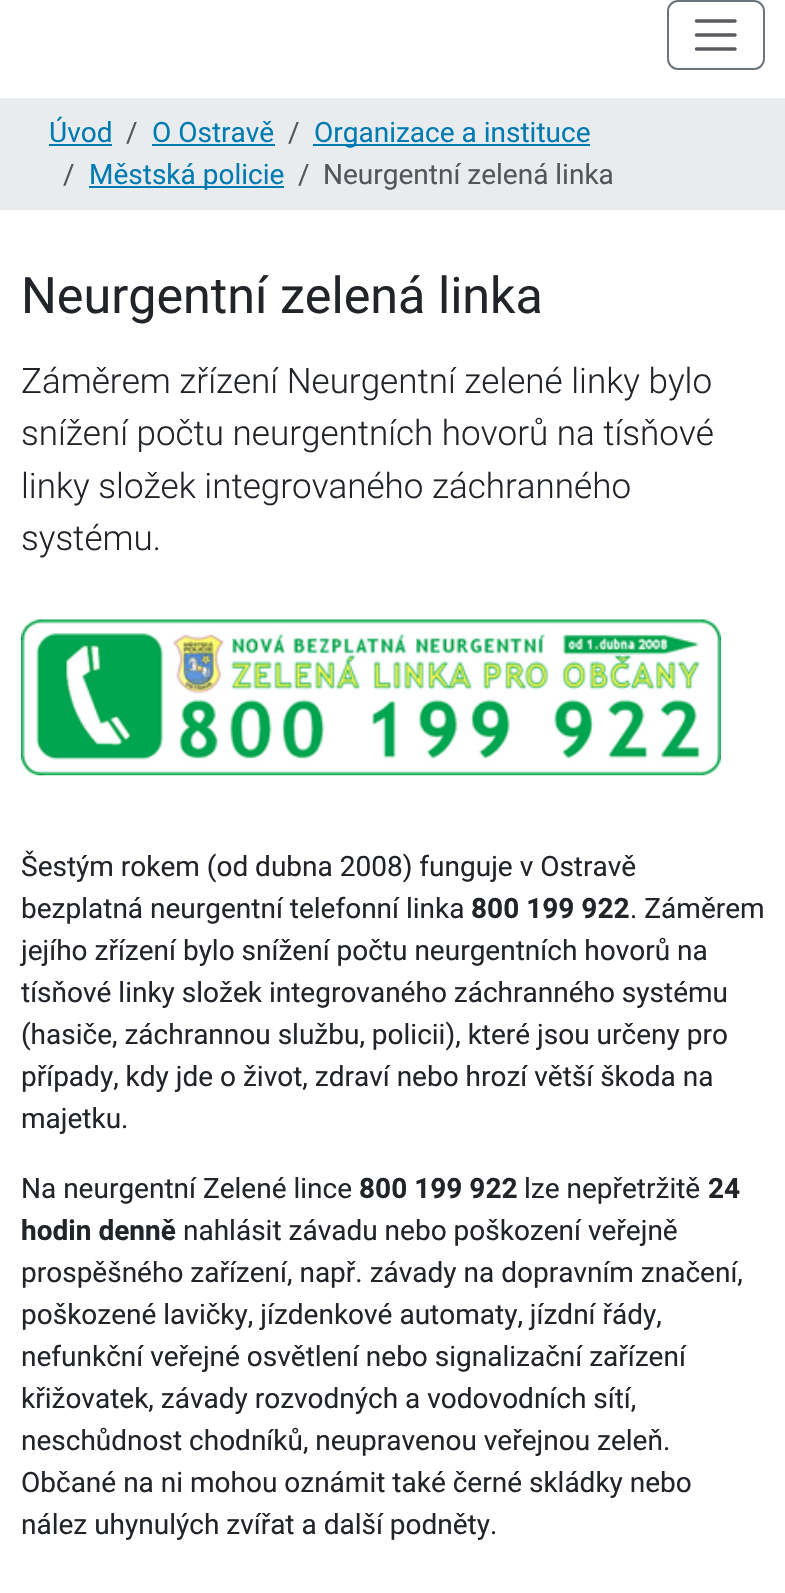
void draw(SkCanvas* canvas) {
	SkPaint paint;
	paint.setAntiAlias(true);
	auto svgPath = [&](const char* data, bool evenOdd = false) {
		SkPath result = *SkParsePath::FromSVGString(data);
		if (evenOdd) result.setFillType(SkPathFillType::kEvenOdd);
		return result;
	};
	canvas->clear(0xffffffff);
	paint.setStroke(true);
	paint.setStrokeWidth(2);
	paint.setColor(0xff6c757d);
	canvas->drawRoundRect(SkRect::MakeXYWH(668, 1, 96, 68), 10, 10, paint);
	paint.setStrokeWidth(3.5);
	paint.setStrokeCap(SkPaint::kRound_Cap);
	paint.setColor(0xff595c5f);
	canvas->drawPath(svgPath("M696.5 21H735M696.5 35H735M696.5 49H735"), paint);
	paint.setStroke(false);
	paint.setColor(0xffe9ecef);
	canvas->drawRect(SkRect::MakeXYWH(0, 98, 785, 112), paint);
	SkFont f1(fontMgr->matchFamilyStyle("Roboto", SkFontStyle::Normal()), 28);
	f1.setSubpixel(true);
	paint.setColor(0xff007bb1);
	canvas->drawString("Úvod", 49, 142, f1, paint);
	canvas->drawRect(SkRect::MakeXYWH(49, 144, 63, 2), paint);
	paint.setColor(0xff53575b);
	canvas->drawString("/", 126, 142, f1, paint);
	paint.setColor(0xff007bb1);
	canvas->drawString("O Ostravě", 152, 142, f1, paint);
	canvas->drawRect(SkRect::MakeXYWH(152, 144, 123, 2), paint);
	paint.setColor(0xff53575b);
	canvas->drawString("/", 288, 142, f1, paint);
	paint.setColor(0xff007bb1);
	canvas->drawRect(SkRect::MakeXYWH(313, 144, 277, 2), paint);
	canvas->drawString("Organizace a instituce", 314, 142, f1, paint);
	paint.setColor(0xff53575b);
	canvas->drawString("/", 63, 184, f1, paint);
	paint.setColor(0xff007bb1);
	canvas->drawRect(SkRect::MakeXYWH(89, 186, 195, 2), paint);
	canvas->drawString("Městská policie", 89, 184, f1, paint);
	paint.setColor(0xff53575b);
	canvas->drawString("/", 298, 184, f1, paint);
	canvas->drawString("Neurgentní zelená linka", 323, 184, f1, paint);
	SkFont f2(fontMgr->matchFamilyStyle("Roboto", SkFontStyle::Normal()), 50.25);
	f2.setSubpixel(true);
	paint.setColor(0xff212529);
	canvas->drawString("Neurgentní zelená linka", 21, 313, f2, paint);
	SkFont f3(fontMgr->matchFamilyStyle("Roboto", SkFontStyle(300, SkFontStyle::kNormal_Width, SkFontStyle::kUpright_Slant)), 35);
	f3.setSubpixel(true);
	canvas->drawString("Záměrem zřízení Neurgentní zelené linky bylo", 21, 393, f3, paint);
	canvas->drawString("snížení počtu neurgentních hovorů na tísňové", 21, 445, f3, paint);
	canvas->drawString("linky složek integrovaného záchranného", 21, 498, f3, paint);
	canvas->drawString("systému.", 21, 550, f3, paint);
	canvas->drawImageRect(SkImages::DeferredFromEncodedData(SkData::MakeFromFileName("img1.png")), SkRect::MakeXYWH(21, 619, 700, 157), SkSamplingOptions());
	canvas->drawString("Šestým rokem (od dubna 2008) funguje v Ostravě", 21, 876, f1, paint);
	canvas->drawString("bezplatná neurgentní telefonní linka", 21, 918, f1, paint);
	SkFont f4(fontMgr->matchFamilyStyle("Roboto", SkFontStyle::Bold()), 28);
	f4.setSubpixel(true);
	canvas->drawString("800 199 922", 471, 918, f4, paint);
	canvas->drawString(". Záměrem", 630, 918, f1, paint);
	canvas->drawString("jejího zřízení bylo snížení počtu neurgentních hovorů na", 21, 960, f1, paint);
	canvas->drawString("tísňové linky složek integrovaného záchranného systému", 21, 1002, f1, paint);
	canvas->drawString("(hasiče, záchrannou službu, policii), které jsou určeny pro", 21, 1044, f1, paint);
	canvas->drawString("případy, kdy jde o život, zdraví nebo hrozí větší škoda na", 21, 1086, f1, paint);
	canvas->drawString("majetku.", 21, 1128, f1, paint);
	canvas->drawString("Na neurgentní Zelené lince", 21, 1198, f1, paint);
	canvas->drawString("800 199 922", 359, 1198, f4, paint);
	canvas->drawString("lze nepřetržitě", 524, 1198, f1, paint);
	canvas->drawString("24", 708, 1198, f4, paint);
	canvas->drawString("hodin denně", 21, 1240, f4, paint);
	canvas->drawString("nahlásit závadu nebo poškození veřejně", 183, 1240, f1, paint);
	canvas->drawString("prospěšného zařízení, např. závady na dopravním značení,", 21, 1282, f1, paint);
	canvas->drawString("poškozené lavičky, jízdenkové automaty, jízdní řády,", 21, 1324, f1, paint);
	canvas->drawString("nefunkční veřejné osvětlení nebo signalizační zařízení", 21, 1366, f1, paint);
	canvas->drawString("křižovatek, závady rozvodných a vodovodních sítí,", 21, 1408, f1, paint);
	canvas->drawString("neschůdnost chodníků, neupravenou veřejnou zeleň.", 21, 1450, f1, paint);
	canvas->drawString("Občané na ni mohou oznámit také černé skládky nebo", 21, 1492, f1, paint);
	canvas->drawString("nález uhynulých zvířat a další podněty.", 21, 1534, f1, paint);
}
